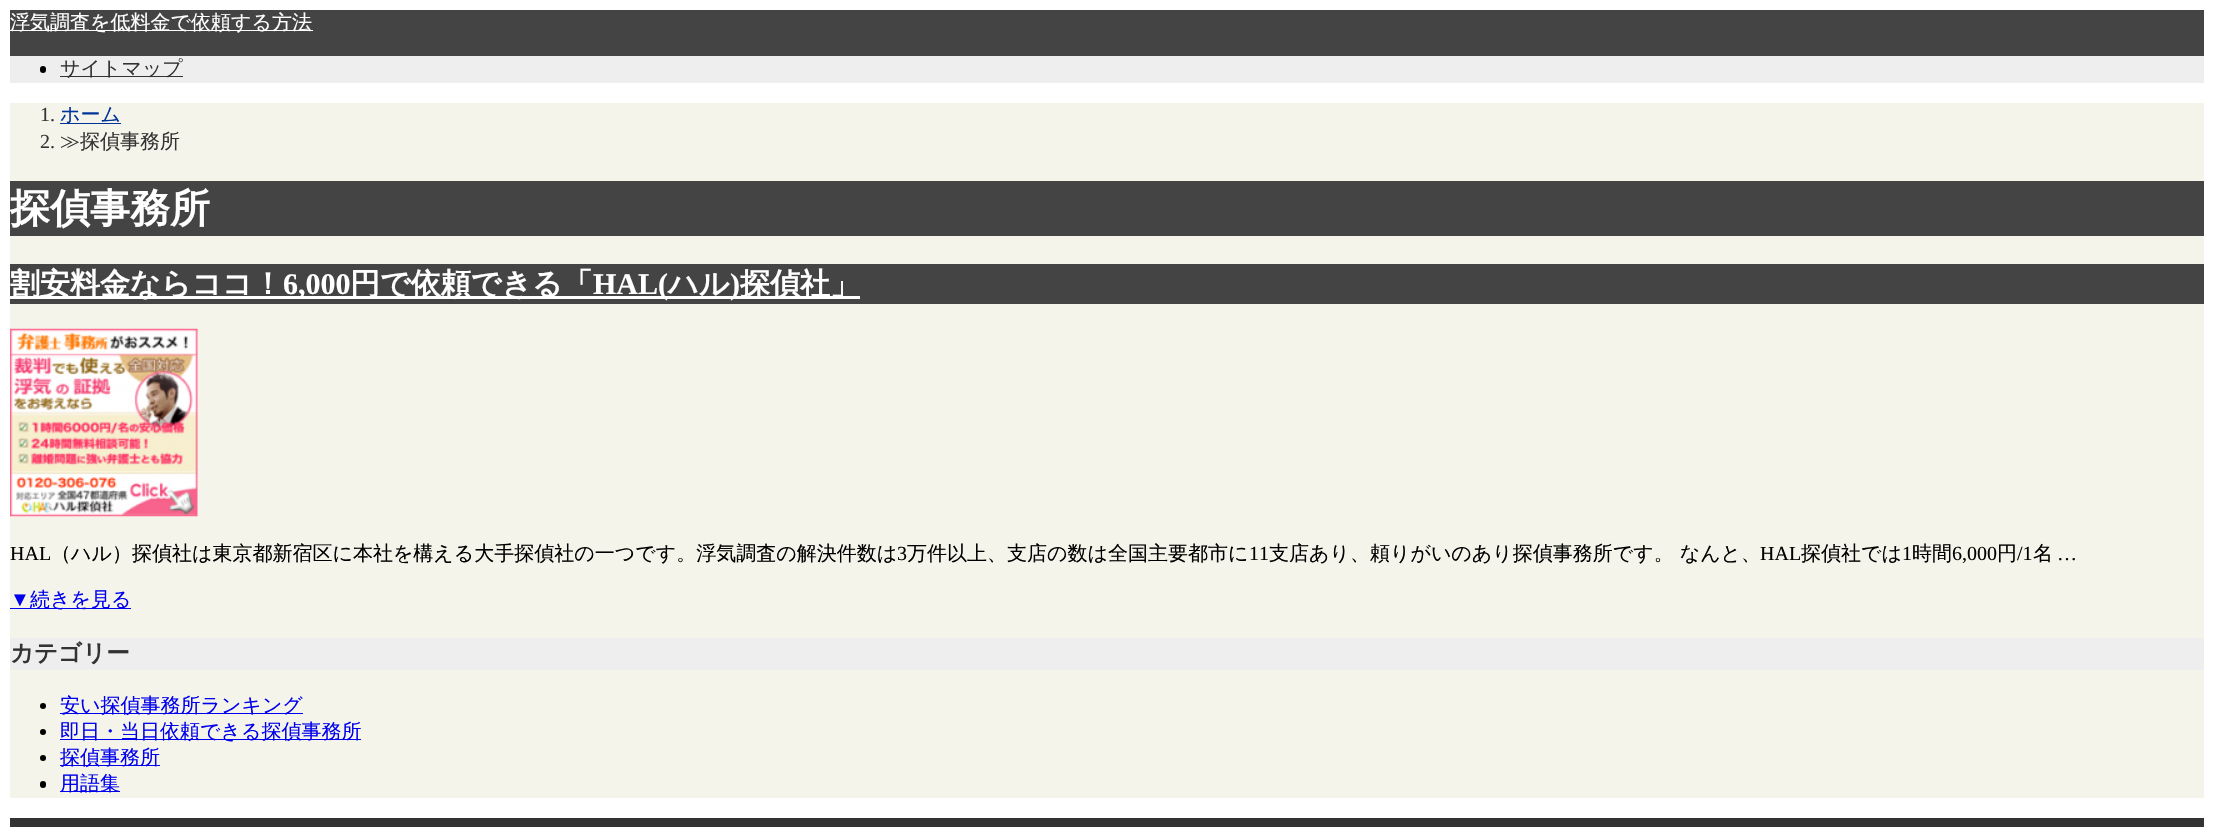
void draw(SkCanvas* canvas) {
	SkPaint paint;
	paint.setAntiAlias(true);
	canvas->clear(0xffffffff);
	paint.setColor(0xff444444);
	canvas->drawRect(SkRect::MakeXYWH(10, 10, 2194, 46), paint);
	paint.setColor(0xffffffff);
	canvas->drawRect(SkRect::MakeXYWH(10, 30, 303, 1), paint);
	SkFont f1(fontMgr->matchFamilyStyle("WenQuanYi Zen Hei", SkFontStyle(500, SkFontStyle::kNormal_Width, SkFontStyle::kUpright_Slant)), 20);
	f1.setSubpixel(true);
	canvas->drawString("浮気調査を低料金で依頼する方法", 10, 29, f1, paint);
	paint.setColor(0xffeeeeee);
	canvas->drawRect(SkRect::MakeXYWH(10, 56, 2194, 27), paint);
	paint.setColor(0xff000000);
	canvas->drawRoundRect(SkRect::MakeXYWH(40, 66, 6, 7), 3, 3, paint);
	paint.setColor(0xff333333);
	canvas->drawRect(SkRect::MakeXYWH(60, 76, 123, 1), paint);
	canvas->drawString("サイトマップ", 60, 75, f1, paint);
	paint.setColor(0xfff4f4ea);
	canvas->drawRect(SkRect::MakeXYWH(10, 103, 2194, 695), paint);
	SkFont f2(fontMgr->matchFamilyStyle("Liberation Serif", SkFontStyle::Normal()), 20);
	f2.setSubpixel(true);
	paint.setColor(0xff333333);
	canvas->drawString("1.", 40, 121, f2, paint);
	paint.setColor(0xff003399);
	canvas->drawRect(SkRect::MakeXYWH(60, 123, 61, 1), paint);
	canvas->drawString("ホーム", 60, 121, f1, paint);
	paint.setColor(0xff333333);
	canvas->drawString("2.", 40, 148, f2, paint);
	canvas->drawString("≫探偵事務所", 60, 148, f1, paint);
	paint.setColor(0xff444444);
	canvas->drawRect(SkRect::MakeXYWH(10, 181, 2194, 55), paint);
	SkFont f3(fontMgr->matchFamilyStyle("WenQuanYi Zen Hei", SkFontStyle::Bold()), 40);
	f3.setSubpixel(true);
	paint.setColor(0xffffffff);
	canvas->drawString("探偵事務所", 10, 222, f3, paint);
	paint.setColor(0xff444444);
	canvas->drawRect(SkRect::MakeXYWH(10, 264, 2194, 40), paint);
	paint.setColor(0xffffffff);
	canvas->drawRect(SkRect::MakeXYWH(10, 296, 850, 3), paint);
	SkFont f4(fontMgr->matchFamilyStyle("WenQuanYi Zen Hei", SkFontStyle::Bold()), 30);
	f4.setSubpixel(true);
	canvas->drawString("割安料金ならココ！", 10, 294, f4, paint);
	SkFont f5(fontMgr->matchFamilyStyle("Liberation Serif", SkFontStyle::Bold()), 30);
	f5.setSubpixel(true);
	canvas->drawString("6,000", 283, 294, f5, paint);
	canvas->drawString("円で依頼できる「", 350, 294, f4, paint);
	canvas->drawString("HAL(", 593, 294, f5, paint);
	canvas->drawString("ハル", 668, 294, f4, paint);
	canvas->drawString(")", 730, 294, f5, paint);
	canvas->drawString("探偵社」", 740, 294, f4, paint);
	canvas->drawImageRect(SkImages::DeferredFromEncodedData(SkData::MakeFromFileName("img1.png")), SkRect::MakeXYWH(10, 328, 188, 189), SkSamplingOptions());
	paint.setColor(0xff000000);
	canvas->drawString("HAL", 10, 560, f2, paint);
	canvas->drawString("（ハル）探偵社は東京都新宿区に本社を構える大手探偵社の一つです。浮気調査の解決件数は", 51, 560, f1, paint);
	canvas->drawString("3", 897, 560, f2, paint);
	canvas->drawString("万件以上、支店の数は全国主要都市に", 907, 560, f1, paint);
	canvas->drawString("11", 1249, 560, f2, paint);
	canvas->drawString("支店あり、頼りがいのあり探偵事務所です。 なんと、", 1269, 560, f1, paint);
	canvas->drawString("HAL", 1760, 560, f2, paint);
	canvas->drawString("探偵社では", 1801, 560, f1, paint);
	canvas->drawString("1", 1902, 560, f2, paint);
	canvas->drawString("時間", 1912, 560, f1, paint);
	canvas->drawString("6,000", 1952, 560, f2, paint);
	canvas->drawString("円", 1997, 560, f1, paint);
	canvas->drawString("/1", 2017, 560, f2, paint);
	canvas->drawString("名", 2033, 560, f1, paint);
	canvas->drawString("…", 2057, 560, f2, paint);
	paint.setColor(0xff0000ee);
	canvas->drawString("▼", 10, 606, f2, paint);
	canvas->drawRect(SkRect::MakeXYWH(10, 608, 121, 1), paint);
	canvas->drawString("続きを見る", 30, 606, f1, paint);
	paint.setColor(0xffeeeeee);
	canvas->drawRect(SkRect::MakeXYWH(10, 638, 2194, 32), paint);
	SkFont f6(fontMgr->matchFamilyStyle("WenQuanYi Zen Hei", SkFontStyle::Bold()), 23.5);
	f6.setSubpixel(true);
	paint.setColor(0xff333333);
	canvas->drawString("カテゴリー", 10, 661, f6, paint);
	paint.setColor(0xff000000);
	canvas->drawCircle(43, 706, 3, paint);
	paint.setColor(0xff0000ee);
	canvas->drawRect(SkRect::MakeXYWH(60, 713, 243, 1), paint);
	canvas->drawString("安い探偵事務所ランキング", 60, 712, f1, paint);
	paint.setColor(0xff000000);
	canvas->drawCircle(43, 732, 3, paint);
	paint.setColor(0xff0000ee);
	canvas->drawRect(SkRect::MakeXYWH(60, 739, 301, 1), paint);
	canvas->drawString("即日・当日依頼できる探偵事務所", 60, 738, f1, paint);
	paint.setColor(0xff000000);
	canvas->drawCircle(43, 758, 3, paint);
	paint.setColor(0xff0000ee);
	canvas->drawRect(SkRect::MakeXYWH(60, 765, 100, 1), paint);
	canvas->drawString("探偵事務所", 60, 764, f1, paint);
	paint.setColor(0xff000000);
	canvas->drawRoundRect(SkRect::MakeXYWH(40, 781, 6, 7), 3, 3, paint);
	paint.setColor(0xff0000ee);
	canvas->drawRect(SkRect::MakeXYWH(60, 791, 60, 1), paint);
	canvas->drawString("用語集", 60, 790, f1, paint);
	paint.setColor(0xff333333);
	canvas->drawRect(SkRect::MakeXYWH(10, 818, 2194, 9), paint);
}
